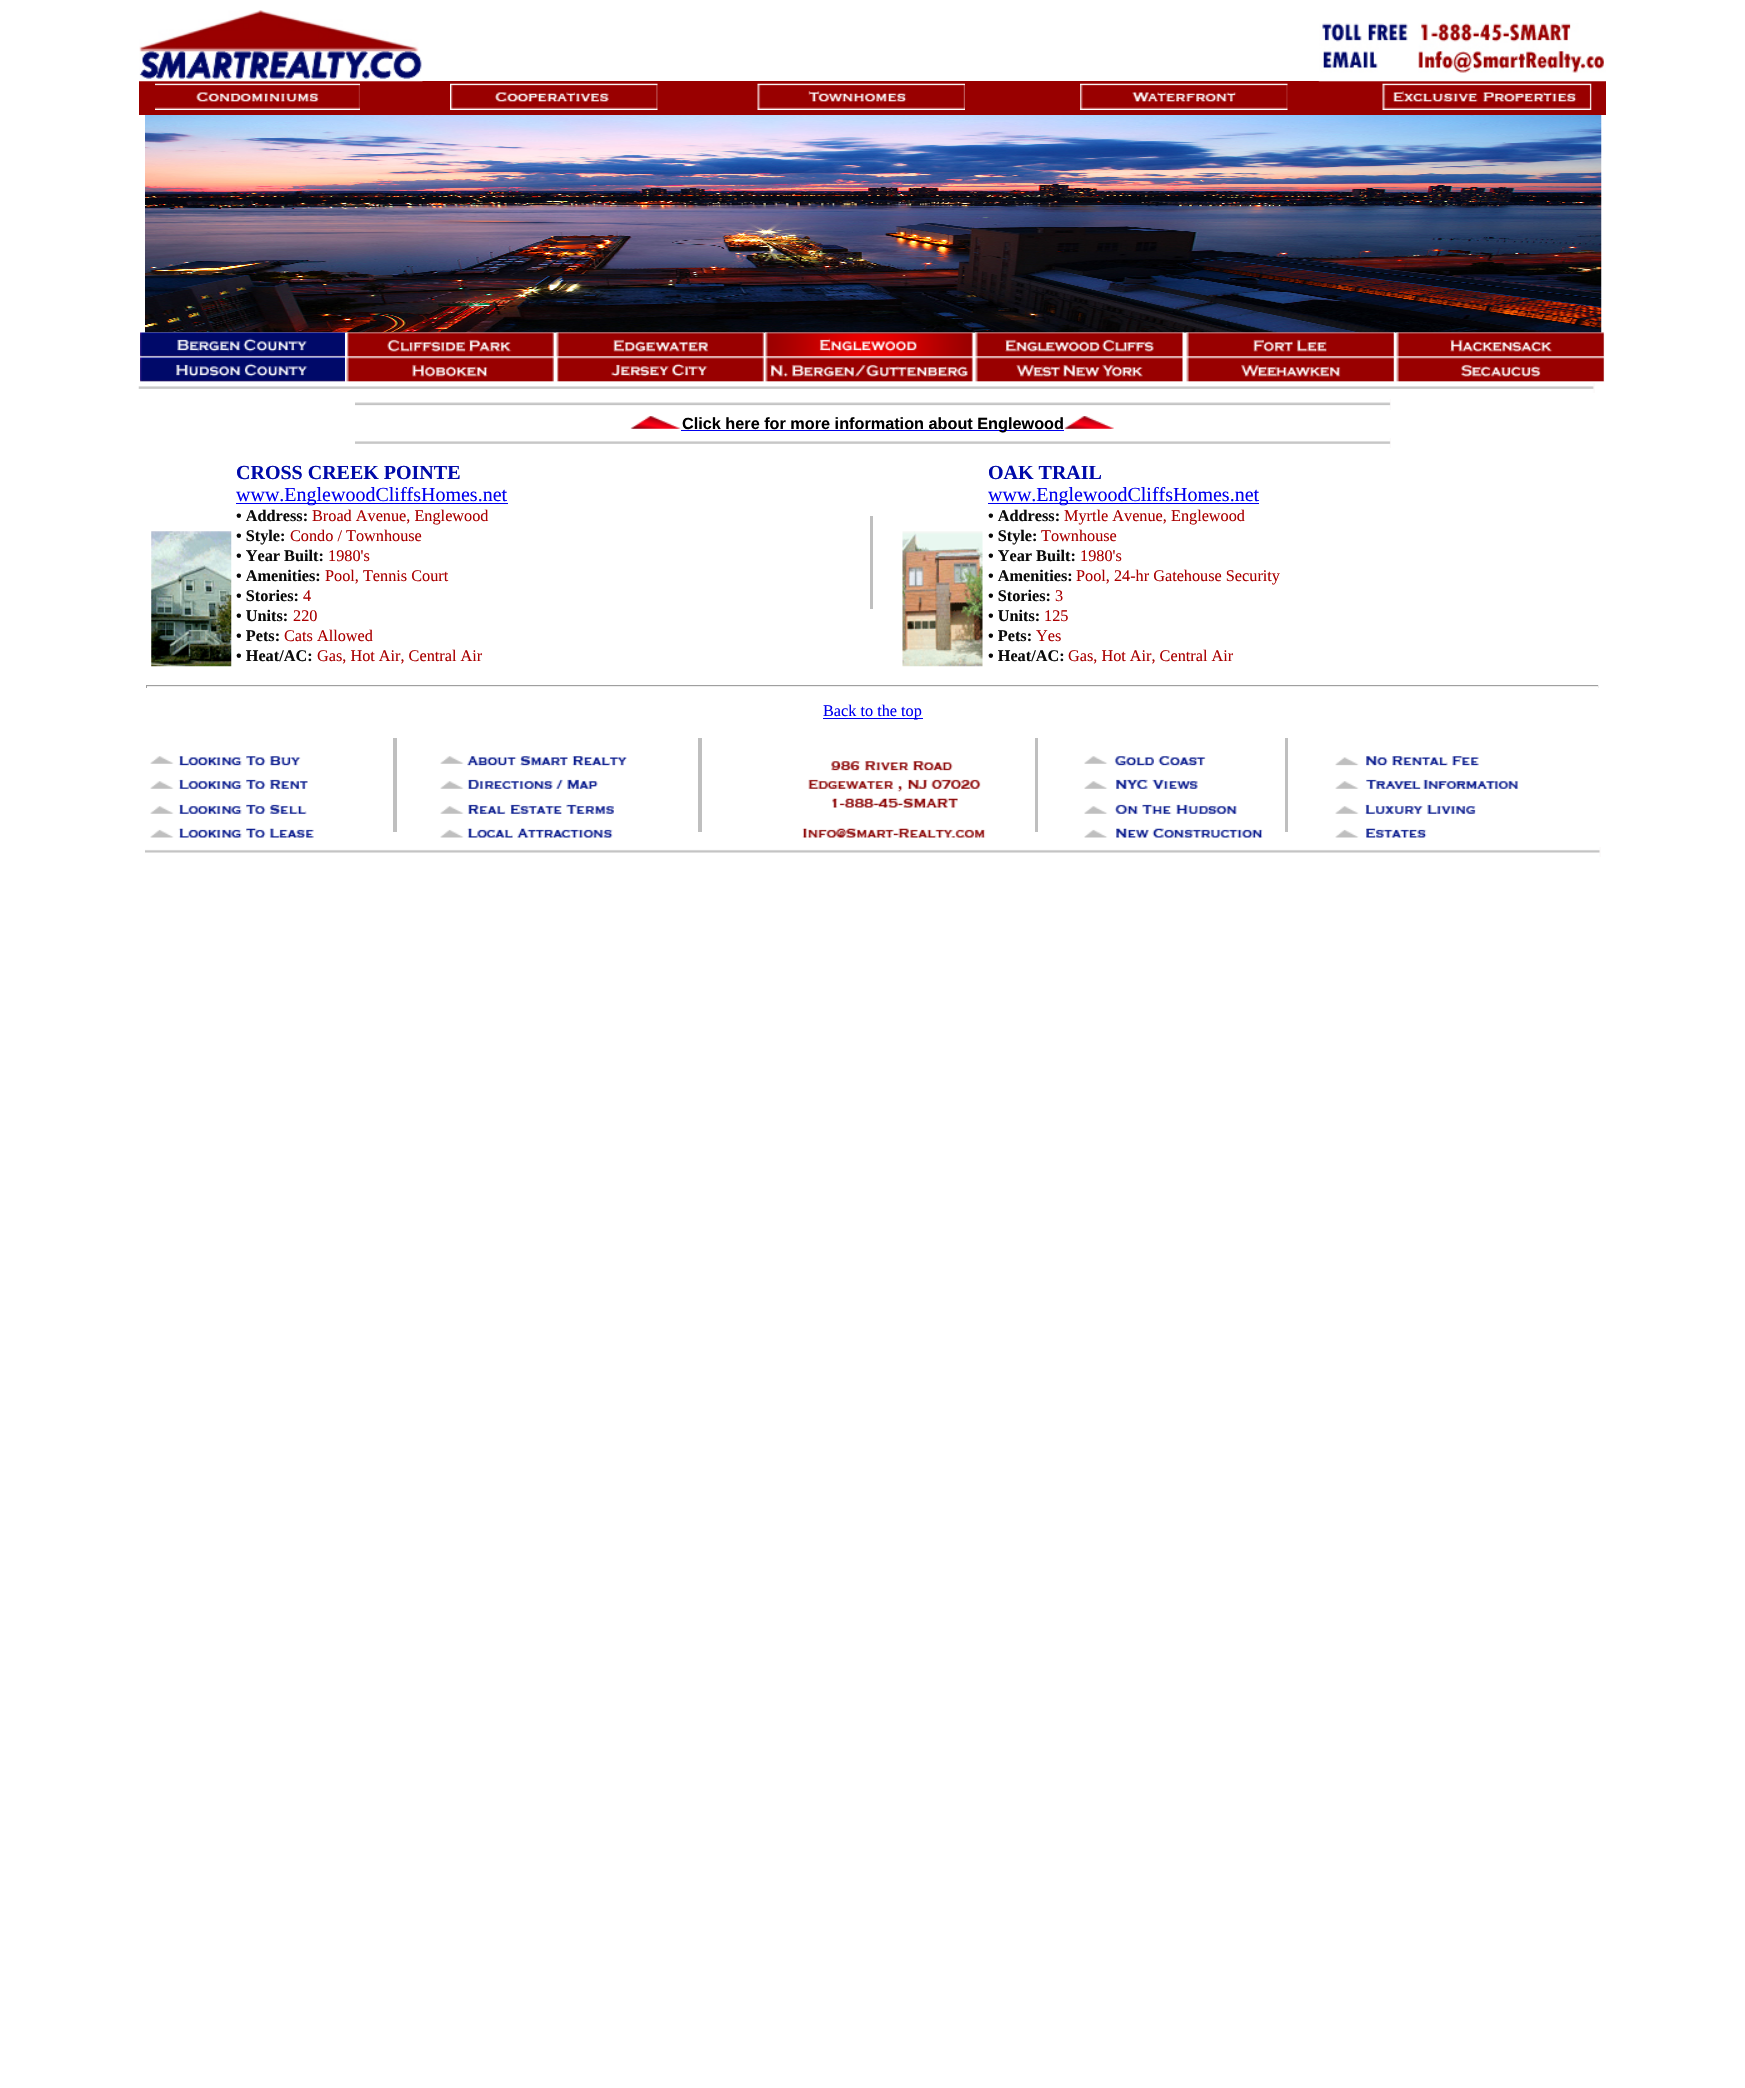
void draw(SkCanvas* canvas) {
	SkPaint paint;
	paint.setAntiAlias(true);
	canvas->clear(0xffffffff);
	paint.setColor(0xff990000);
	canvas->drawRect(SkRect::MakeXYWH(139, 81, 1467, 34), paint);
	canvas->drawImageRect(SkImages::DeferredFromEncodedData(SkData::MakeFromFileName("img1.png")), SkRect::MakeXYWH(139, 10, 284, 72), SkSamplingOptions());
	canvas->drawImageRect(SkImages::DeferredFromEncodedData(SkData::MakeFromFileName("img2.png")), SkRect::MakeXYWH(1318, 23, 288, 59), SkSamplingOptions());
	canvas->drawImageRect(SkImages::DeferredFromEncodedData(SkData::MakeFromFileName("img3.png")), SkRect::MakeXYWH(155, 83, 205, 27), SkSamplingOptions());
	canvas->drawImageRect(SkImages::DeferredFromEncodedData(SkData::MakeFromFileName("img4.png")), SkRect::MakeXYWH(450, 83, 208, 27), SkSamplingOptions());
	canvas->drawImageRect(SkImages::DeferredFromEncodedData(SkData::MakeFromFileName("img5.png")), SkRect::MakeXYWH(757, 83, 208, 27), SkSamplingOptions());
	canvas->drawImageRect(SkImages::DeferredFromEncodedData(SkData::MakeFromFileName("img6.png")), SkRect::MakeXYWH(1080, 83, 208, 27), SkSamplingOptions());
	canvas->drawImageRect(SkImages::DeferredFromEncodedData(SkData::MakeFromFileName("img7.png")), SkRect::MakeXYWH(1382, 83, 210, 27), SkSamplingOptions());
	canvas->drawImageRect(SkImages::DeferredFromEncodedData(SkData::MakeFromFileName("img8.png")), SkRect::MakeXYWH(145, 115, 1457, 218), SkSamplingOptions());
	canvas->drawImageRect(SkImages::DeferredFromEncodedData(SkData::MakeFromFileName("img9.png")), SkRect::MakeXYWH(140, 332, 205, 25), SkSamplingOptions());
	canvas->drawImageRect(SkImages::DeferredFromEncodedData(SkData::MakeFromFileName("img10.png")), SkRect::MakeXYWH(346, 332, 208, 25), SkSamplingOptions());
	canvas->drawImageRect(SkImages::DeferredFromEncodedData(SkData::MakeFromFileName("img11.png")), SkRect::MakeXYWH(556, 332, 208, 25), SkSamplingOptions());
	canvas->drawImageRect(SkImages::DeferredFromEncodedData(SkData::MakeFromFileName("img12.png")), SkRect::MakeXYWH(765, 332, 208, 25), SkSamplingOptions());
	canvas->drawImageRect(SkImages::DeferredFromEncodedData(SkData::MakeFromFileName("img13.png")), SkRect::MakeXYWH(975, 332, 209, 25), SkSamplingOptions());
	canvas->drawImageRect(SkImages::DeferredFromEncodedData(SkData::MakeFromFileName("img14.png")), SkRect::MakeXYWH(1186, 332, 209, 25), SkSamplingOptions());
	canvas->drawImageRect(SkImages::DeferredFromEncodedData(SkData::MakeFromFileName("img15.png")), SkRect::MakeXYWH(1396, 332, 209, 25), SkSamplingOptions());
	canvas->drawImageRect(SkImages::DeferredFromEncodedData(SkData::MakeFromFileName("img16.png")), SkRect::MakeXYWH(140, 357, 205, 25), SkSamplingOptions());
	canvas->drawImageRect(SkImages::DeferredFromEncodedData(SkData::MakeFromFileName("img17.png")), SkRect::MakeXYWH(346, 357, 208, 25), SkSamplingOptions());
	canvas->drawImageRect(SkImages::DeferredFromEncodedData(SkData::MakeFromFileName("img18.png")), SkRect::MakeXYWH(556, 357, 208, 25), SkSamplingOptions());
	canvas->drawImageRect(SkImages::DeferredFromEncodedData(SkData::MakeFromFileName("img19.png")), SkRect::MakeXYWH(765, 357, 208, 25), SkSamplingOptions());
	canvas->drawImageRect(SkImages::DeferredFromEncodedData(SkData::MakeFromFileName("img20.png")), SkRect::MakeXYWH(975, 357, 208, 25), SkSamplingOptions());
	canvas->drawImageRect(SkImages::DeferredFromEncodedData(SkData::MakeFromFileName("img21.png")), SkRect::MakeXYWH(1186, 357, 209, 25), SkSamplingOptions());
	canvas->drawImageRect(SkImages::DeferredFromEncodedData(SkData::MakeFromFileName("img22.png")), SkRect::MakeXYWH(1396, 357, 209, 25), SkSamplingOptions());
	canvas->drawImageRect(SkImages::DeferredFromEncodedData(SkData::MakeFromFileName("img23.png")), SkRect::MakeXYWH(138, 383, 1457, 10), SkSamplingOptions());
	canvas->drawImageRect(SkImages::DeferredFromEncodedData(SkData::MakeFromFileName("img24.png")), SkRect::MakeXYWH(355, 399, 1036, 11), SkSamplingOptions());
	canvas->drawImageRect(SkImages::DeferredFromEncodedData(SkData::MakeFromFileName("img25.png")), SkRect::MakeXYWH(630, 416, 51, 13), SkSamplingOptions());
	paint.setColor(0xff0000ee);
	canvas->drawRect(SkRect::MakeXYWH(681, 430, 383, 1), paint);
	SkFont f1(fontMgr->matchFamilyStyle("Liberation Sans", SkFontStyle::Bold()), 16.25);
	f1.setSubpixel(true);
	paint.setColor(0xff000000);
	canvas->drawString("Click here for more information about Englewood", 682, 429, f1, paint);
	canvas->drawImageRect(SkImages::DeferredFromEncodedData(SkData::MakeFromFileName("img26.png")), SkRect::MakeXYWH(1064, 416, 50, 13), SkSamplingOptions());
	canvas->drawImageRect(SkImages::DeferredFromEncodedData(SkData::MakeFromFileName("img27.png")), SkRect::MakeXYWH(355, 438, 1036, 10), SkSamplingOptions());
	canvas->drawImageRect(SkImages::DeferredFromEncodedData(SkData::MakeFromFileName("img28.png")), SkRect::MakeXYWH(151, 531, 81, 136), SkSamplingOptions());
	SkFont f2(fontMgr->matchFamilyStyle("Liberation Serif", SkFontStyle::Bold()), 20);
	f2.setSubpixel(true);
	paint.setColor(0xff000aaa);
	canvas->drawString("CROSS CREEK POINTE", 236, 479, f2, paint);
	paint.setColor(0xff0000ee);
	canvas->drawRect(SkRect::MakeXYWH(236, 503, 272, 1), paint);
	SkFont f3(fontMgr->matchFamilyStyle("Liberation Serif", SkFontStyle::Normal()), 20);
	f3.setSubpixel(true);
	canvas->drawString("www.EnglewoodCliffsHomes.net", 236, 501, f3, paint);
	SkFont f4(fontMgr->matchFamilyStyle("Liberation Serif", SkFontStyle::Bold()), 16.25);
	f4.setSubpixel(true);
	paint.setColor(0xff0b0b0b);
	canvas->drawString("• Address:", 236, 521, f4, paint);
	SkFont f5(fontMgr->matchFamilyStyle("Liberation Serif", SkFontStyle::Normal()), 16.25);
	f5.setSubpixel(true);
	paint.setColor(0xffaa0000);
	canvas->drawString("Broad Avenue, Englewood", 312, 521, f5, paint);
	paint.setColor(0xff0b0b0b);
	canvas->drawString("• Style:", 236, 541, f4, paint);
	paint.setColor(0xffaa0000);
	canvas->drawString("Condo / Townhouse", 290, 541, f5, paint);
	paint.setColor(0xff0b0b0b);
	canvas->drawString("• Year Built:", 236, 561, f4, paint);
	paint.setColor(0xffaa0000);
	canvas->drawString("1980's", 328, 561, f5, paint);
	paint.setColor(0xff0b0b0b);
	canvas->drawString("• Amenities:", 236, 581, f4, paint);
	paint.setColor(0xffaa0000);
	canvas->drawString("Pool, Tennis Court", 325, 581, f5, paint);
	paint.setColor(0xff0b0b0b);
	canvas->drawString("• Stories:", 236, 601, f4, paint);
	paint.setColor(0xffaa0000);
	canvas->drawString("4", 303, 601, f5, paint);
	paint.setColor(0xff0b0b0b);
	canvas->drawString("• Units:", 236, 621, f4, paint);
	paint.setColor(0xffaa0000);
	canvas->drawString("220", 293, 621, f5, paint);
	paint.setColor(0xff0b0b0b);
	canvas->drawString("• Pets:", 236, 641, f4, paint);
	paint.setColor(0xffaa0000);
	canvas->drawString("Cats Allowed", 284, 641, f5, paint);
	paint.setColor(0xff0b0b0b);
	canvas->drawString("• Heat/AC:", 236, 661, f4, paint);
	paint.setColor(0xffaa0000);
	canvas->drawString("Gas, Hot Air, Central Air", 317, 661, f5, paint);
	paint.setColor(0xffbfbfbf);
	canvas->drawRect(SkRect::MakeXYWH(870, 516, 3, 93), paint);
	canvas->drawImageRect(SkImages::DeferredFromEncodedData(SkData::MakeFromFileName("img29.png")), SkRect::MakeXYWH(902, 531, 81, 136), SkSamplingOptions());
	paint.setColor(0xff000aaa);
	canvas->drawString("OAK TRAIL", 988, 479, f2, paint);
	paint.setColor(0xff0000ee);
	canvas->drawRect(SkRect::MakeXYWH(988, 503, 271, 1), paint);
	canvas->drawString("www.EnglewoodCliffsHomes.net", 988, 501, f3, paint);
	paint.setColor(0xff0b0b0b);
	canvas->drawString("• Address:", 988, 521, f4, paint);
	paint.setColor(0xffaa0000);
	canvas->drawString("Myrtle Avenue, Englewood", 1064, 521, f5, paint);
	paint.setColor(0xff0b0b0b);
	canvas->drawString("• Style:", 988, 541, f4, paint);
	paint.setColor(0xffaa0000);
	canvas->drawString("Townhouse", 1041, 541, f5, paint);
	paint.setColor(0xff0b0b0b);
	canvas->drawString("• Year Built:", 988, 561, f4, paint);
	paint.setColor(0xffaa0000);
	canvas->drawString("1980's", 1080, 561, f5, paint);
	paint.setColor(0xff0b0b0b);
	canvas->drawString("• Amenities:", 988, 581, f4, paint);
	paint.setColor(0xffaa0000);
	canvas->drawString("Pool, 24-hr Gatehouse Security", 1076, 581, f5, paint);
	paint.setColor(0xff0b0b0b);
	canvas->drawString("• Stories:", 988, 601, f4, paint);
	paint.setColor(0xffaa0000);
	canvas->drawString("3", 1055, 601, f5, paint);
	paint.setColor(0xff0b0b0b);
	canvas->drawString("• Units:", 988, 621, f4, paint);
	paint.setColor(0xffaa0000);
	canvas->drawString("125", 1044, 621, f5, paint);
	paint.setColor(0xff0b0b0b);
	canvas->drawString("• Pets:", 988, 641, f4, paint);
	paint.setColor(0xffaa0000);
	canvas->drawString("Yes", 1036, 641, f5, paint);
	paint.setColor(0xff0b0b0b);
	canvas->drawString("• Heat/AC:", 988, 661, f4, paint);
	paint.setColor(0xffaa0000);
	canvas->drawString("Gas, Hot Air, Central Air", 1068, 661, f5, paint);
	paint.setColor(0xff9f9f9f);
	canvas->drawRect(SkRect::MakeXYWH(146, 685, 1453, 1), paint);
	paint.setColor(0xffeeeeee);
	canvas->drawRect(SkRect::MakeXYWH(1598, 685, 1, 3), paint);
	canvas->drawRect(SkRect::MakeXYWH(146, 686, 1453, 1), paint);
	paint.setColor(0xff9f9f9f);
	canvas->drawRect(SkRect::MakeXYWH(146, 685, 1, 3), paint);
	paint.setColor(0xff0000ee);
	canvas->drawRect(SkRect::MakeXYWH(823, 718, 100, 1), paint);
	canvas->drawString("Back to the top", 823, 716, f5, paint);
	paint.setColor(0xffbfbfbf);
	canvas->drawRect(SkRect::MakeXYWH(393, 738, 4, 94), paint);
	canvas->drawRect(SkRect::MakeXYWH(698, 738, 4, 94), paint);
	canvas->drawRect(SkRect::MakeXYWH(1035, 738, 3, 94), paint);
	canvas->drawRect(SkRect::MakeXYWH(1285, 738, 3, 94), paint);
	canvas->drawImageRect(SkImages::DeferredFromEncodedData(SkData::MakeFromFileName("img30.png")), SkRect::MakeXYWH(150, 756, 151, 10), SkSamplingOptions());
	canvas->drawImageRect(SkImages::DeferredFromEncodedData(SkData::MakeFromFileName("img31.png")), SkRect::MakeXYWH(440, 756, 187, 10), SkSamplingOptions());
	canvas->drawImageRect(SkImages::DeferredFromEncodedData(SkData::MakeFromFileName("img32.png")), SkRect::MakeXYWH(808, 761, 173, 47), SkSamplingOptions());
	canvas->drawImageRect(SkImages::DeferredFromEncodedData(SkData::MakeFromFileName("img33.png")), SkRect::MakeXYWH(1084, 756, 122, 10), SkSamplingOptions());
	canvas->drawImageRect(SkImages::DeferredFromEncodedData(SkData::MakeFromFileName("img34.png")), SkRect::MakeXYWH(1335, 756, 144, 10), SkSamplingOptions());
	canvas->drawImageRect(SkImages::DeferredFromEncodedData(SkData::MakeFromFileName("img35.png")), SkRect::MakeXYWH(150, 779, 158, 10), SkSamplingOptions());
	canvas->drawImageRect(SkImages::DeferredFromEncodedData(SkData::MakeFromFileName("img36.png")), SkRect::MakeXYWH(440, 779, 158, 10), SkSamplingOptions());
	canvas->drawImageRect(SkImages::DeferredFromEncodedData(SkData::MakeFromFileName("img37.png")), SkRect::MakeXYWH(1084, 779, 114, 10), SkSamplingOptions());
	canvas->drawImageRect(SkImages::DeferredFromEncodedData(SkData::MakeFromFileName("img38.png")), SkRect::MakeXYWH(1335, 779, 184, 10), SkSamplingOptions());
	canvas->drawImageRect(SkImages::DeferredFromEncodedData(SkData::MakeFromFileName("img39.png")), SkRect::MakeXYWH(150, 804, 157, 10), SkSamplingOptions());
	canvas->drawImageRect(SkImages::DeferredFromEncodedData(SkData::MakeFromFileName("img40.png")), SkRect::MakeXYWH(440, 804, 174, 10), SkSamplingOptions());
	canvas->drawImageRect(SkImages::DeferredFromEncodedData(SkData::MakeFromFileName("img41.png")), SkRect::MakeXYWH(1084, 804, 153, 10), SkSamplingOptions());
	canvas->drawImageRect(SkImages::DeferredFromEncodedData(SkData::MakeFromFileName("img42.png")), SkRect::MakeXYWH(1335, 804, 141, 10), SkSamplingOptions());
	canvas->drawImageRect(SkImages::DeferredFromEncodedData(SkData::MakeFromFileName("img43.png")), SkRect::MakeXYWH(150, 828, 164, 10), SkSamplingOptions());
	canvas->drawImageRect(SkImages::DeferredFromEncodedData(SkData::MakeFromFileName("img44.png")), SkRect::MakeXYWH(440, 828, 173, 10), SkSamplingOptions());
	canvas->drawImageRect(SkImages::DeferredFromEncodedData(SkData::MakeFromFileName("img45.png")), SkRect::MakeXYWH(802, 828, 184, 10), SkSamplingOptions());
	canvas->drawImageRect(SkImages::DeferredFromEncodedData(SkData::MakeFromFileName("img46.png")), SkRect::MakeXYWH(1084, 828, 179, 10), SkSamplingOptions());
	canvas->drawImageRect(SkImages::DeferredFromEncodedData(SkData::MakeFromFileName("img47.png")), SkRect::MakeXYWH(1335, 828, 92, 10), SkSamplingOptions());
	canvas->drawImageRect(SkImages::DeferredFromEncodedData(SkData::MakeFromFileName("img48.png")), SkRect::MakeXYWH(145, 847, 1456, 10), SkSamplingOptions());
}
